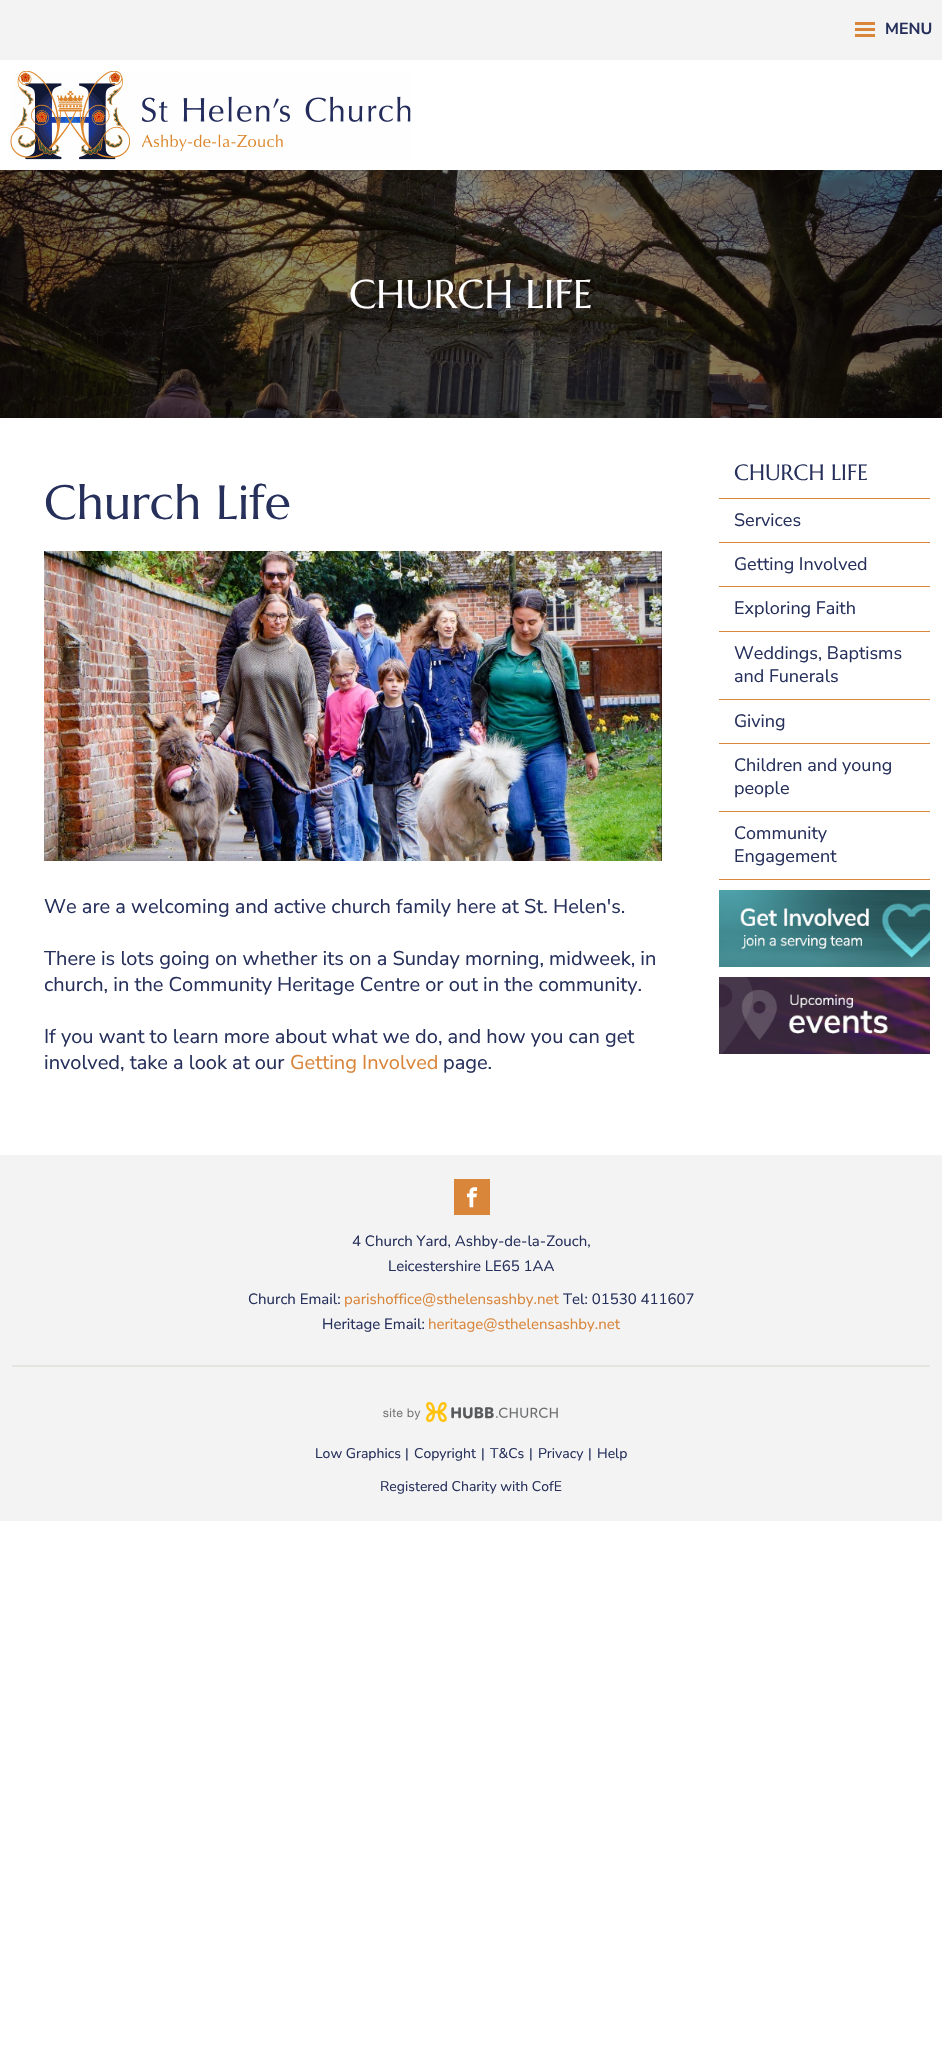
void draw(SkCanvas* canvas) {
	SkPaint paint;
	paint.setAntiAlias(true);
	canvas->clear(0xffffffff);
	paint.setColor(0xfff3f3f3);
	canvas->drawRect(SkRect::MakeXYWH(0, 0, 942, 60), paint);
	paint.setColor(0xffd9853a);
	canvas->drawRect(SkRect::MakeXYWH(855, 22, 20, 3), paint);
	canvas->drawRect(SkRect::MakeXYWH(855, 28, 20, 3), paint);
	canvas->drawRect(SkRect::MakeXYWH(855, 34, 20, 3), paint);
	SkFont f1(fontMgr->matchFamilyStyle("Nunito Sans", SkFontStyle::Bold()), 16);
	f1.setSubpixel(true);
	paint.setColor(0xff26305b);
	canvas->drawString("MENU", 885, 34, f1, paint);
	canvas->drawImageRect(SkImages::DeferredFromEncodedData(SkData::MakeFromFileName("img1.png")), SkRect::MakeXYWH(10, 71, 401, 89), SkSamplingOptions());
	canvas->drawImageRect(SkImages::DeferredFromEncodedData(SkData::MakeFromFileName("img2.png")), SkRect::MakeXYWH(0, 170, 942, 248), SkSamplingOptions());
	SkFont f2(fontMgr->matchFamilyStyle("Marcellus", SkFontStyle::Normal()), 40);
	f2.setSubpixel(true);
	paint.setColor(0xffffffff);
	canvas->drawString("CHURCH LIFE", 349, 308, f2, paint);
	SkFont f3(fontMgr->matchFamilyStyle("Marcellus", SkFontStyle::Normal()), 48);
	f3.setSubpixel(true);
	paint.setColor(0xff26305b);
	canvas->drawString("Church Life", 44, 519, f3, paint);
	canvas->drawImageRect(SkImages::DeferredFromEncodedData(SkData::MakeFromFileName("img3.png")), SkRect::MakeXYWH(44, 551, 618, 310), SkSamplingOptions());
	SkFont f4(fontMgr->matchFamilyStyle("Nunito Sans", SkFontStyle::Normal()), 20);
	f4.setSubpixel(true);
	canvas->drawString("We are a welcoming and active church family here at St. Helen's.", 44, 913, f4, paint);
	canvas->drawString("There is lots going on whether its on a Sunday morning, midweek, in", 44, 965, f4, paint);
	canvas->drawString("church, in the Community Heritage Centre or out in the community.", 44, 991, f4, paint);
	canvas->drawString("If you want to learn more about what we do, and how you can get", 44, 1043, f4, paint);
	canvas->drawString("involved, take a look at our", 44, 1069, f4, paint);
	paint.setColor(0xffd9853a);
	canvas->drawString("Getting Involved", 290, 1069, f4, paint);
	paint.setColor(0xff26305b);
	canvas->drawString("page.", 443, 1069, f4, paint);
	paint.setColor(0xffd9853a);
	canvas->drawRect(SkRect::MakeXYWH(719, 498, 211, 1), paint);
	SkFont f5(fontMgr->matchFamilyStyle("Marcellus", SkFontStyle::Normal()), 22);
	f5.setSubpixel(true);
	paint.setColor(0xff26305b);
	canvas->drawString("CHURCH LIFE", 734, 480, f5, paint);
	paint.setColor(0xffd9853a);
	canvas->drawRect(SkRect::MakeXYWH(719, 542, 211, 1), paint);
	SkFont f6(fontMgr->matchFamilyStyle("Nunito Sans", SkFontStyle::Normal()), 18);
	f6.setSubpixel(true);
	paint.setColor(0xff26305b);
	canvas->drawString("Services", 734, 526, f6, paint);
	paint.setColor(0xffd9853a);
	canvas->drawRect(SkRect::MakeXYWH(719, 586, 211, 1), paint);
	paint.setColor(0xff26305b);
	canvas->drawString("Getting Involved", 734, 570, f6, paint);
	paint.setColor(0xffd9853a);
	canvas->drawRect(SkRect::MakeXYWH(719, 631, 211, 1), paint);
	paint.setColor(0xff26305b);
	canvas->drawString("Exploring Faith", 734, 614, f6, paint);
	paint.setColor(0xffd9853a);
	canvas->drawRect(SkRect::MakeXYWH(719, 699, 211, 1), paint);
	paint.setColor(0xff26305b);
	canvas->drawString("Weddings, Baptisms", 734, 659, f6, paint);
	canvas->drawString("and Funerals", 734, 682, f6, paint);
	paint.setColor(0xffd9853a);
	canvas->drawRect(SkRect::MakeXYWH(719, 743, 211, 1), paint);
	paint.setColor(0xff26305b);
	canvas->drawString("Giving", 734, 727, f6, paint);
	paint.setColor(0xffd9853a);
	canvas->drawRect(SkRect::MakeXYWH(719, 811, 211, 1), paint);
	paint.setColor(0xff26305b);
	canvas->drawString("Children and young", 734, 771, f6, paint);
	canvas->drawString("people", 734, 794, f6, paint);
	paint.setColor(0xffd9853a);
	canvas->drawRect(SkRect::MakeXYWH(719, 879, 211, 1), paint);
	paint.setColor(0xff26305b);
	canvas->drawString("Community", 734, 839, f6, paint);
	canvas->drawString("Engagement", 734, 862, f6, paint);
	canvas->drawImageRect(SkImages::DeferredFromEncodedData(SkData::MakeFromFileName("img4.png")), SkRect::MakeXYWH(719, 890, 211, 77), SkSamplingOptions());
	canvas->drawImageRect(SkImages::DeferredFromEncodedData(SkData::MakeFromFileName("img5.png")), SkRect::MakeXYWH(719, 977, 211, 77), SkSamplingOptions());
	paint.setColor(0xfff3f3f3);
	canvas->drawRect(SkRect::MakeXYWH(0, 1155, 942, 366), paint);
	paint.setColor(0xffd9853a);
	canvas->drawRect(SkRect::MakeXYWH(458, 1183, 28, 28), paint);
	paint.setStroke(true);
	paint.setStrokeWidth(8);
	canvas->drawRect(SkRect::MakeXYWH(458, 1183, 28, 28), paint);
	canvas->drawImageRect(SkImages::DeferredFromEncodedData(SkData::MakeFromFileName("img6.png")), SkRect::MakeXYWH(467, 1187, 10, 21), SkSamplingOptions());
	SkFont f7(fontMgr->matchFamilyStyle("Nunito Sans", SkFontStyle::Normal()), 15);
	f7.setSubpixel(true);
	paint.setStroke(false);
	paint.setColor(0xff26305b);
	canvas->drawString("4 Church Yard, Ashby-de-la-Zouch,", 352, 1246, f7, paint);
	canvas->drawString("Leicestershire LE65 1AA", 388, 1271, f7, paint);
	canvas->drawString("Church Email:", 248, 1304, f7, paint);
	paint.setColor(0xffd9853a);
	canvas->drawString("parishoffice@sthelensashby.net", 344, 1304, f7, paint);
	paint.setColor(0xff26305b);
	canvas->drawString("Tel: 01530 411607", 563, 1304, f7, paint);
	canvas->drawString("Heritage Email:", 322, 1329, f7, paint);
	paint.setColor(0xffd9853a);
	canvas->drawString("heritage@sthelensashby.net", 428, 1329, f7, paint);
	paint.setColor(0xffe6e4e1);
	canvas->drawRect(SkRect::MakeXYWH(12, 1365, 918, 2), paint);
	canvas->drawImageRect(SkImages::DeferredFromEncodedData(SkData::MakeFromFileName("img7.png")), SkRect::MakeXYWH(383, 1402, 175, 20), SkSamplingOptions());
	SkFont f8(fontMgr->matchFamilyStyle("Nunito Sans", SkFontStyle::Normal()), 14);
	f8.setSubpixel(true);
	paint.setColor(0xff26305b);
	canvas->drawString("Low Graphics", 315, 1458, f8, paint);
	canvas->drawString("|", 405, 1458, f8, paint);
	canvas->drawString("Copyright", 414, 1458, f8, paint);
	canvas->drawString("|", 481, 1458, f8, paint);
	canvas->drawString("T&Cs", 490, 1458, f8, paint);
	canvas->drawString("|", 529, 1458, f8, paint);
	canvas->drawString("Privacy", 538, 1458, f8, paint);
	canvas->drawString("|", 588, 1458, f8, paint);
	canvas->drawString("Help", 597, 1458, f8, paint);
	canvas->drawString("Registered Charity with CofE", 380, 1491, f8, paint);
}
